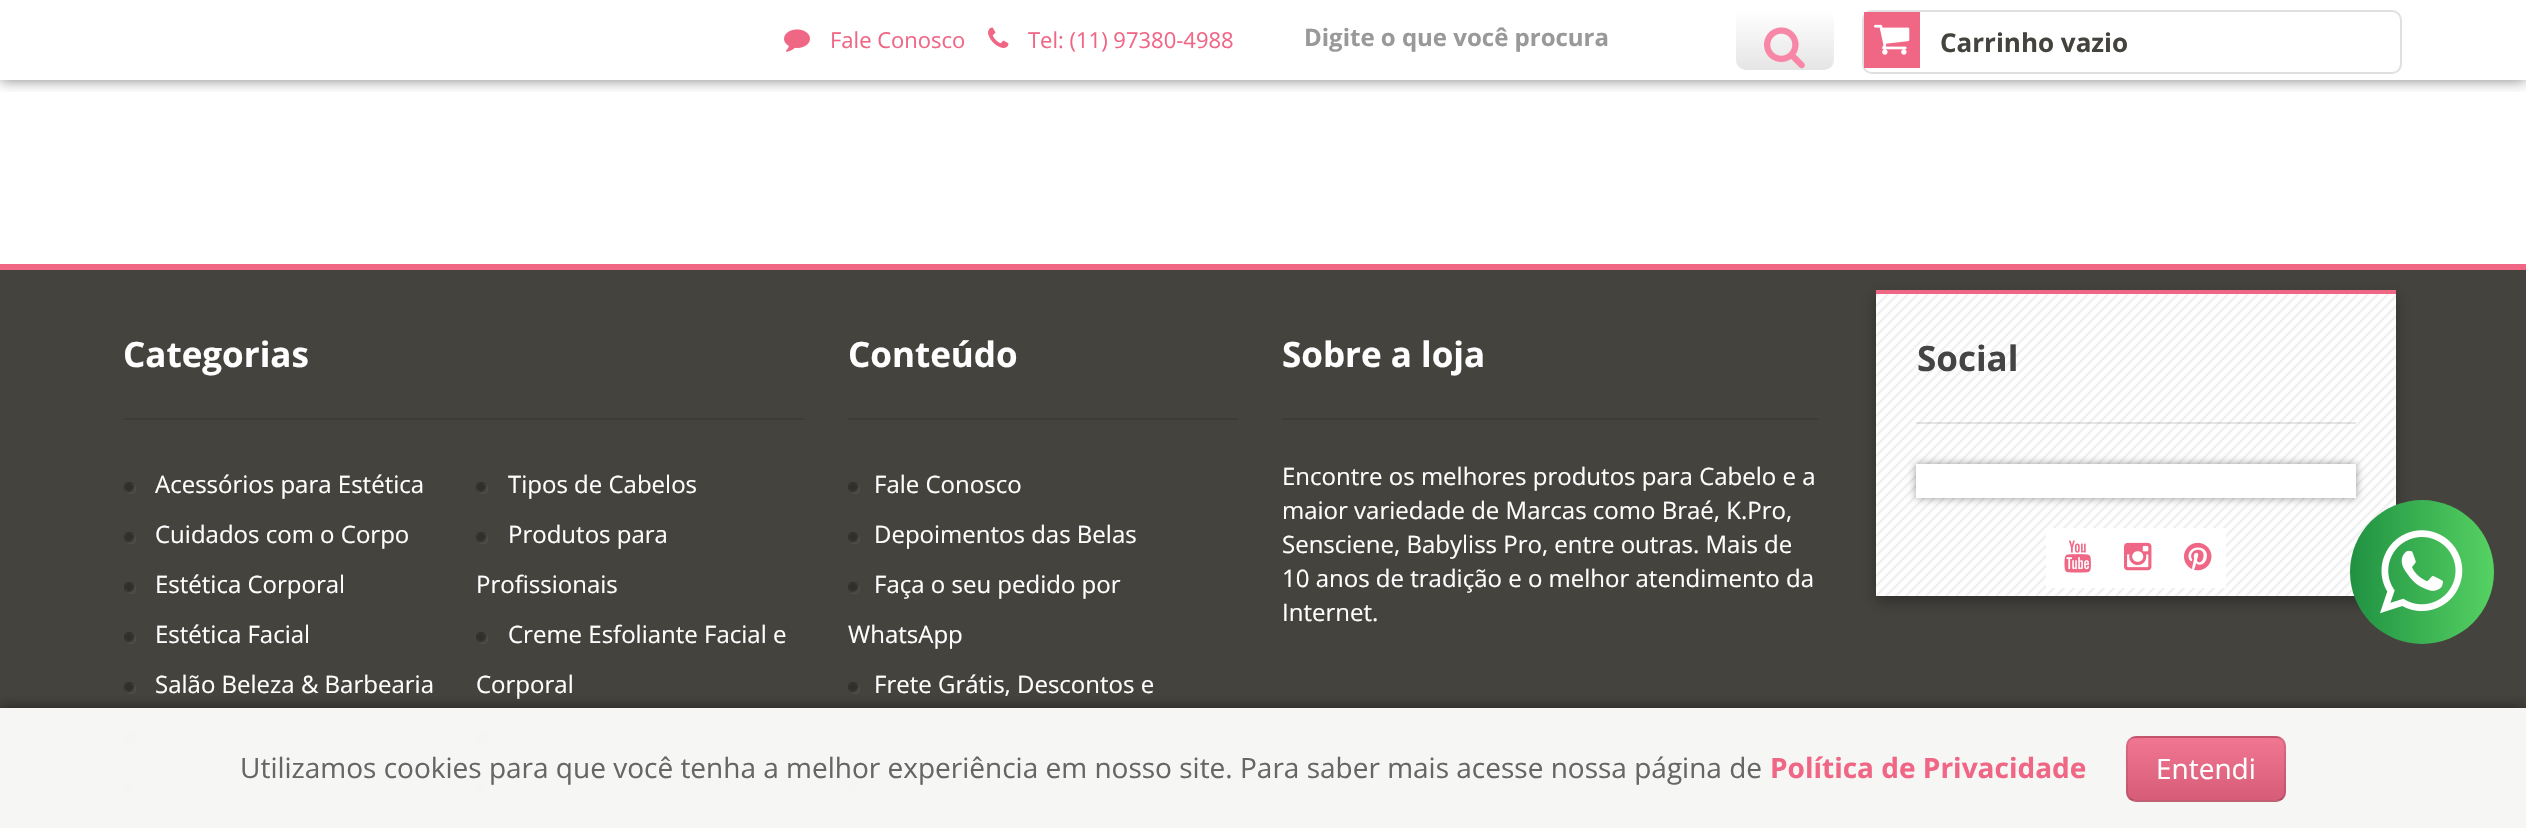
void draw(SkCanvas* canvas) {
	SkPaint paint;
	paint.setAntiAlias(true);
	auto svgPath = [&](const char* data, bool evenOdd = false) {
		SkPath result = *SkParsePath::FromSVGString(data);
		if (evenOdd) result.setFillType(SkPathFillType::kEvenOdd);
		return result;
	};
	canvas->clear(0xffffffff);
	canvas->save();
	canvas->clipRect(SkRect::MakeXYWH(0, 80, 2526, 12));
	paint.setColor(0x80000000);
	paint.setMaskFilter(SkMaskFilter::MakeBlur(kNormal_SkBlurStyle, 7));
	canvas->drawRect(SkRect::MakeXYWH(0, 0, 2526, 80), paint);
	paint.setMaskFilter(nullptr);
	canvas->restore();
	canvas->drawImageRect(SkImages::DeferredFromEncodedData(SkData::MakeFromFileName("img1.png")), SkRect::MakeXYWH(784, 29, 26, 23), SkSamplingOptions());
	SkFont f1(fontMgr->matchFamilyStyle("Open Sans", SkFontStyle::Normal()), 22);
	f1.setSubpixel(true);
	paint.setColor(0xfff06685);
	canvas->drawString("Fale Conosco", 830, 48, f1, paint);
	canvas->drawImageRect(SkImages::DeferredFromEncodedData(SkData::MakeFromFileName("img2.png")), SkRect::MakeXYWH(988, 27, 21, 21), SkSamplingOptions());
	canvas->drawString("Tel: (11) 97380-4988", 1028, 48, f1, paint);
	SkFont f2(fontMgr->matchFamilyStyle("Open Sans", SkFontStyle::Bold()), 24);
	f2.setSubpixel(true);
	paint.setColor(0xff999999);
	canvas->drawString("Digite o que você procura", 1304, 46, f2, paint);
	{
		const SkColor colors[] = {0xffffffff, 0xffe5e5e5};
		const float stops[] = {0, 1};
		const SkPoint ends[] = {{1785, 10}, {1785, 70}};
		paint.setShader(SkGradientShader::MakeLinear(ends, colors, stops, 2, SkTileMode::kClamp));
		paint.setAlpha(255);
	}
	canvas->drawRoundRect(SkRect::MakeXYWH(1736, 10, 98, 60), 10, 10, paint);
	canvas->drawImageRect(SkImages::DeferredFromEncodedData(SkData::MakeFromFileName("img3.png")), SkRect::MakeXYWH(1764, 27, 41, 42), SkSamplingOptions());
	paint.setStroke(true);
	paint.setStrokeWidth(2);
	paint.setShader(nullptr);
	paint.setColor(0x1f000000);
	canvas->drawRoundRect(SkRect::MakeXYWH(1863, 11, 538, 62), 9, 9, paint);
	paint.setStroke(false);
	paint.setColor(0xfff06685);
	canvas->drawRect(SkRect::MakeXYWH(1864, 12, 56, 56), paint);
	canvas->drawImageRect(SkImages::DeferredFromEncodedData(SkData::MakeFromFileName("img4.png")), SkRect::MakeXYWH(1874, 24, 36, 31), SkSamplingOptions());
	SkFont f3(fontMgr->matchFamilyStyle("Open Sans", SkFontStyle::Bold()), 26);
	f3.setSubpixel(true);
	paint.setColor(0xff45433e);
	canvas->drawString("Carrinho vazio", 1940, 52, f3, paint);
	paint.setColor(0xfff06685);
	canvas->drawRect(SkRect::MakeXYWH(0, 264, 2526, 6), paint);
	paint.setColor(0xff45433e);
	canvas->drawRect(SkRect::MakeXYWH(0, 270, 2526, 438), paint);
	paint.setColor(0xfff6f6f5);
	canvas->drawRect(SkRect::MakeXYWH(0, 708, 2526, 120), paint);
	paint.setColor(0xff3e3c38);
	canvas->drawRect(SkRect::MakeXYWH(124, 418, 680, 2), paint);
	SkFont f4(fontMgr->matchFamilyStyle("Open Sans", SkFontStyle::Bold()), 35);
	f4.setSubpixel(true);
	paint.setColor(0xffffffff);
	canvas->drawString("Categorias", 123, 367, f4, paint);
	canvas->drawImageRect(SkImages::DeferredFromEncodedData(SkData::MakeFromFileName("img5.png")), SkRect::MakeXYWH(124, 482, 12, 12), SkSamplingOptions());
	SkFont f5(fontMgr->matchFamilyStyle("Open Sans", SkFontStyle::Normal()), 24);
	f5.setSubpixel(true);
	canvas->drawString("Acessórios para Estética", 155, 493, f5, paint);
	canvas->drawImageRect(SkImages::DeferredFromEncodedData(SkData::MakeFromFileName("img5.png")), SkRect::MakeXYWH(476, 482, 12, 12), SkSamplingOptions());
	canvas->drawString("Tipos de Cabelos", 508, 493, f5, paint);
	canvas->drawImageRect(SkImages::DeferredFromEncodedData(SkData::MakeFromFileName("img5.png")), SkRect::MakeXYWH(124, 532, 12, 12), SkSamplingOptions());
	canvas->drawString("Cuidados com o Corpo", 155, 543, f5, paint);
	canvas->drawImageRect(SkImages::DeferredFromEncodedData(SkData::MakeFromFileName("img5.png")), SkRect::MakeXYWH(476, 532, 12, 12), SkSamplingOptions());
	canvas->drawString("Produtos para", 508, 543, f5, paint);
	canvas->drawString("Profissionais", 476, 593, f5, paint);
	canvas->drawImageRect(SkImages::DeferredFromEncodedData(SkData::MakeFromFileName("img5.png")), SkRect::MakeXYWH(124, 582, 12, 12), SkSamplingOptions());
	canvas->drawString("Estética Corporal", 155, 593, f5, paint);
	canvas->drawImageRect(SkImages::DeferredFromEncodedData(SkData::MakeFromFileName("img5.png")), SkRect::MakeXYWH(124, 632, 12, 12), SkSamplingOptions());
	canvas->drawString("Estética Facial", 155, 643, f5, paint);
	canvas->drawImageRect(SkImages::DeferredFromEncodedData(SkData::MakeFromFileName("img5.png")), SkRect::MakeXYWH(476, 632, 12, 12), SkSamplingOptions());
	canvas->drawString("Creme Esfoliante Facial e", 508, 643, f5, paint);
	canvas->drawString("Corporal", 476, 693, f5, paint);
	canvas->drawImageRect(SkImages::DeferredFromEncodedData(SkData::MakeFromFileName("img5.png")), SkRect::MakeXYWH(124, 682, 12, 12), SkSamplingOptions());
	canvas->drawString("Salão Beleza & Barbearia", 155, 693, f5, paint);
	canvas->drawImageRect(SkImages::DeferredFromEncodedData(SkData::MakeFromFileName("img6.png")), SkRect::MakeXYWH(124, 732, 12, 12), SkSamplingOptions());
	canvas->drawImageRect(SkImages::DeferredFromEncodedData(SkData::MakeFromFileName("img6.png")), SkRect::MakeXYWH(476, 732, 12, 12), SkSamplingOptions());
	canvas->drawImageRect(SkImages::DeferredFromEncodedData(SkData::MakeFromFileName("img6.png")), SkRect::MakeXYWH(124, 782, 12, 12), SkSamplingOptions());
	canvas->drawImageRect(SkImages::DeferredFromEncodedData(SkData::MakeFromFileName("img6.png")), SkRect::MakeXYWH(476, 782, 12, 12), SkSamplingOptions());
	paint.setColor(0xff3e3c38);
	canvas->drawRect(SkRect::MakeXYWH(848, 418, 390, 2), paint);
	paint.setColor(0xffffffff);
	canvas->drawString("Conteúdo", 848, 367, f4, paint);
	canvas->drawImageRect(SkImages::DeferredFromEncodedData(SkData::MakeFromFileName("img5.png")), SkRect::MakeXYWH(848, 482, 12, 12), SkSamplingOptions());
	canvas->drawString("Fale Conosco", 874, 493, f5, paint);
	canvas->drawImageRect(SkImages::DeferredFromEncodedData(SkData::MakeFromFileName("img5.png")), SkRect::MakeXYWH(848, 532, 12, 12), SkSamplingOptions());
	canvas->drawString("Depoimentos das Belas", 874, 543, f5, paint);
	canvas->drawImageRect(SkImages::DeferredFromEncodedData(SkData::MakeFromFileName("img5.png")), SkRect::MakeXYWH(848, 582, 12, 12), SkSamplingOptions());
	canvas->drawString("Faça o seu pedido por", 874, 593, f5, paint);
	canvas->drawString("WhatsApp", 848, 643, f5, paint);
	canvas->drawImageRect(SkImages::DeferredFromEncodedData(SkData::MakeFromFileName("img5.png")), SkRect::MakeXYWH(848, 682, 12, 12), SkSamplingOptions());
	canvas->drawString("Frete Grátis, Descontos e", 874, 693, f5, paint);
	canvas->drawImageRect(SkImages::DeferredFromEncodedData(SkData::MakeFromFileName("img6.png")), SkRect::MakeXYWH(848, 782, 12, 12), SkSamplingOptions());
	paint.setColor(0xff3e3c38);
	canvas->drawRect(SkRect::MakeXYWH(1282, 418, 536, 2), paint);
	paint.setColor(0xffffffff);
	canvas->drawString("Sobre a loja", 1282, 367, f4, paint);
	canvas->drawString("Encontre os melhores produtos para Cabelo e a", 1282, 485, f5, paint);
	canvas->drawString("maior variedade de Marcas como Braé, K.Pro,", 1282, 519, f5, paint);
	canvas->drawString("Sensciene, Babyliss Pro, entre outras. Mais de", 1282, 553, f5, paint);
	canvas->drawString("10 anos de tradição e o melhor atendimento da", 1282, 587, f5, paint);
	canvas->drawString("Internet.", 1282, 621, f5, paint);
	paint.setColor(0x4d000000);
	paint.setMaskFilter(SkMaskFilter::MakeBlur(kNormal_SkBlurStyle, 7));
	canvas->drawRect(SkRect::MakeXYWH(1876, 296, 520, 306), paint);
	paint.setMaskFilter(nullptr);
	paint.setColor(0xffffffff);
	canvas->drawRect(SkRect::MakeXYWH(1876, 294, 520, 302), paint);
	canvas->drawImageRect(SkImages::DeferredFromEncodedData(SkData::MakeFromFileName("img7.png")), SkRect::MakeXYWH(1876, 294, 520, 302), SkSamplingOptions());
	paint.setColor(0xfff06685);
	canvas->drawRect(SkRect::MakeXYWH(1876, 290, 520, 4), paint);
	paint.setColor(0x1a000000);
	canvas->drawRect(SkRect::MakeXYWH(1916, 422, 440, 2), paint);
	paint.setColor(0xff444444);
	canvas->drawString("Social", 1917, 371, f4, paint);
	paint.setColor(0x66000000);
	paint.setMaskFilter(SkMaskFilter::MakeBlur(kNormal_SkBlurStyle, 4));
	canvas->drawRect(SkRect::MakeXYWH(1916, 464, 440, 34), paint);
	paint.setMaskFilter(nullptr);
	paint.setColor(0xffffffff);
	canvas->drawRect(SkRect::MakeXYWH(1916, 464, 440, 34), paint);
	canvas->drawRect(SkRect::MakeXYWH(2046, 528, 180, 60), paint);
	canvas->drawImageRect(SkImages::DeferredFromEncodedData(SkData::MakeFromFileName("img8.png")), SkRect::MakeXYWH(2064, 540, 27, 33), SkSamplingOptions());
	canvas->drawImageRect(SkImages::DeferredFromEncodedData(SkData::MakeFromFileName("img9.png")), SkRect::MakeXYWH(2124, 542, 28, 29), SkSamplingOptions());
	canvas->drawImageRect(SkImages::DeferredFromEncodedData(SkData::MakeFromFileName("img10.png")), SkRect::MakeXYWH(2184, 542, 28, 29), SkSamplingOptions());
	{
		const SkColor colors[] = {0xff209142, 0xff56d263};
		const float stops[] = {0, 1};
		const SkPoint ends[] = {{2350, 572}, {2494, 572}};
		paint.setShader(SkGradientShader::MakeLinear(ends, colors, stops, 2, SkTileMode::kClamp));
		paint.setAlpha(255);
	}
	canvas->drawCircle(2422, 572, 72, paint);
	canvas->drawImageRect(SkImages::DeferredFromEncodedData(SkData::MakeFromFileName("img11.png")), SkRect::MakeXYWH(2380, 530, 83, 84), SkSamplingOptions());
	canvas->save();
	canvas->clipRect(SkRect::MakeXYWH(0, 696, 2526, 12));
	paint.setShader(nullptr);
	paint.setColor(0x80000000);
	paint.setMaskFilter(SkMaskFilter::MakeBlur(kNormal_SkBlurStyle, 7));
	canvas->drawRect(SkRect::MakeXYWH(0, 708, 2526, 120), paint);
	paint.setMaskFilter(nullptr);
	canvas->restore();
	SkFont f6(fontMgr->matchFamilyStyle("Open Sans", SkFontStyle::Normal()), 28);
	f6.setSubpixel(true);
	paint.setColor(0xff666666);
	canvas->drawString("Utilizamos cookies para que você tenha a melhor experiência em nosso site. Para saber mais acesse nossa página de", 240, 778, f6, paint);
	SkFont f7(fontMgr->matchFamilyStyle("Open Sans", SkFontStyle::Bold()), 28);
	f7.setSubpixel(true);
	paint.setColor(0xfff06685);
	canvas->drawString("Política de Privacidade", 1770, 778, f7, paint);
	canvas->drawRoundRect(SkRect::MakeXYWH(2126, 736, 160, 66), 10, 10, paint);
	canvas->save();
	canvas->clipPath(svgPath("M2136 736H2276C2281.5 736 2286 740.5 2286 746V792C2286 797.5 2281.5 802 2276 802H2136C2130.5 802 2126 797.5 2126 792V746C2126 740.5 2130.5 736 2136 736Z"), true);
	{
		const SkColor colors[] = {0x1affffff, 0x1a000000};
		const float stops[] = {0, 1};
		const SkPoint ends[] = {{2206, 676}, {2206, 738}};
		paint.setShader(SkGradientShader::MakeLinear(ends, colors, stops, 2, SkTileMode::kClamp));
		paint.setAlpha(255);
	}
	canvas->drawRect(SkRect::MakeXYWH(2126, 736, 160, 2), paint);
	{
		const SkColor colors[] = {0x1affffff, 0x1a000000};
		const float stops[] = {0, 1};
		const SkPoint ends[] = {{2206, 738}, {2206, 800}};
		paint.setShader(SkGradientShader::MakeLinear(ends, colors, stops, 2, SkTileMode::kClamp));
		paint.setAlpha(255);
	}
	canvas->drawRect(SkRect::MakeXYWH(2126, 738, 160, 62), paint);
	{
		const SkColor colors[] = {0x1affffff, 0x1a000000};
		const float stops[] = {0, 1};
		const SkPoint ends[] = {{2206, 800}, {2206, 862}};
		paint.setShader(SkGradientShader::MakeLinear(ends, colors, stops, 2, SkTileMode::kClamp));
		paint.setAlpha(255);
	}
	canvas->drawRect(SkRect::MakeXYWH(2126, 800, 160, 2), paint);
	canvas->restore();
	paint.setStroke(true);
	paint.setShader(nullptr);
	paint.setColor(0x33000000);
	canvas->drawPath(svgPath("M2282.5 798.5C2280.5 800 2278.5 801 2276 801H2136C2133.5 801 2131.5 800 2129.5 798.5"), paint);
	paint.setColor(0x1a000000);
	canvas->drawPath(svgPath("M2129.5 798.5C2126 794.5 2127 789 2127 784.5V769C2127 733.5 2122.5 737 2159.5 737H2252.5C2289.5 737 2285 733.5 2285 769V784.5C2285 789 2286 794.5 2282.5 798.5"), paint);
	paint.setStroke(false);
	paint.setColor(0xffffffff);
	canvas->drawString("Entendi", 2156, 779, f6, paint);
}
